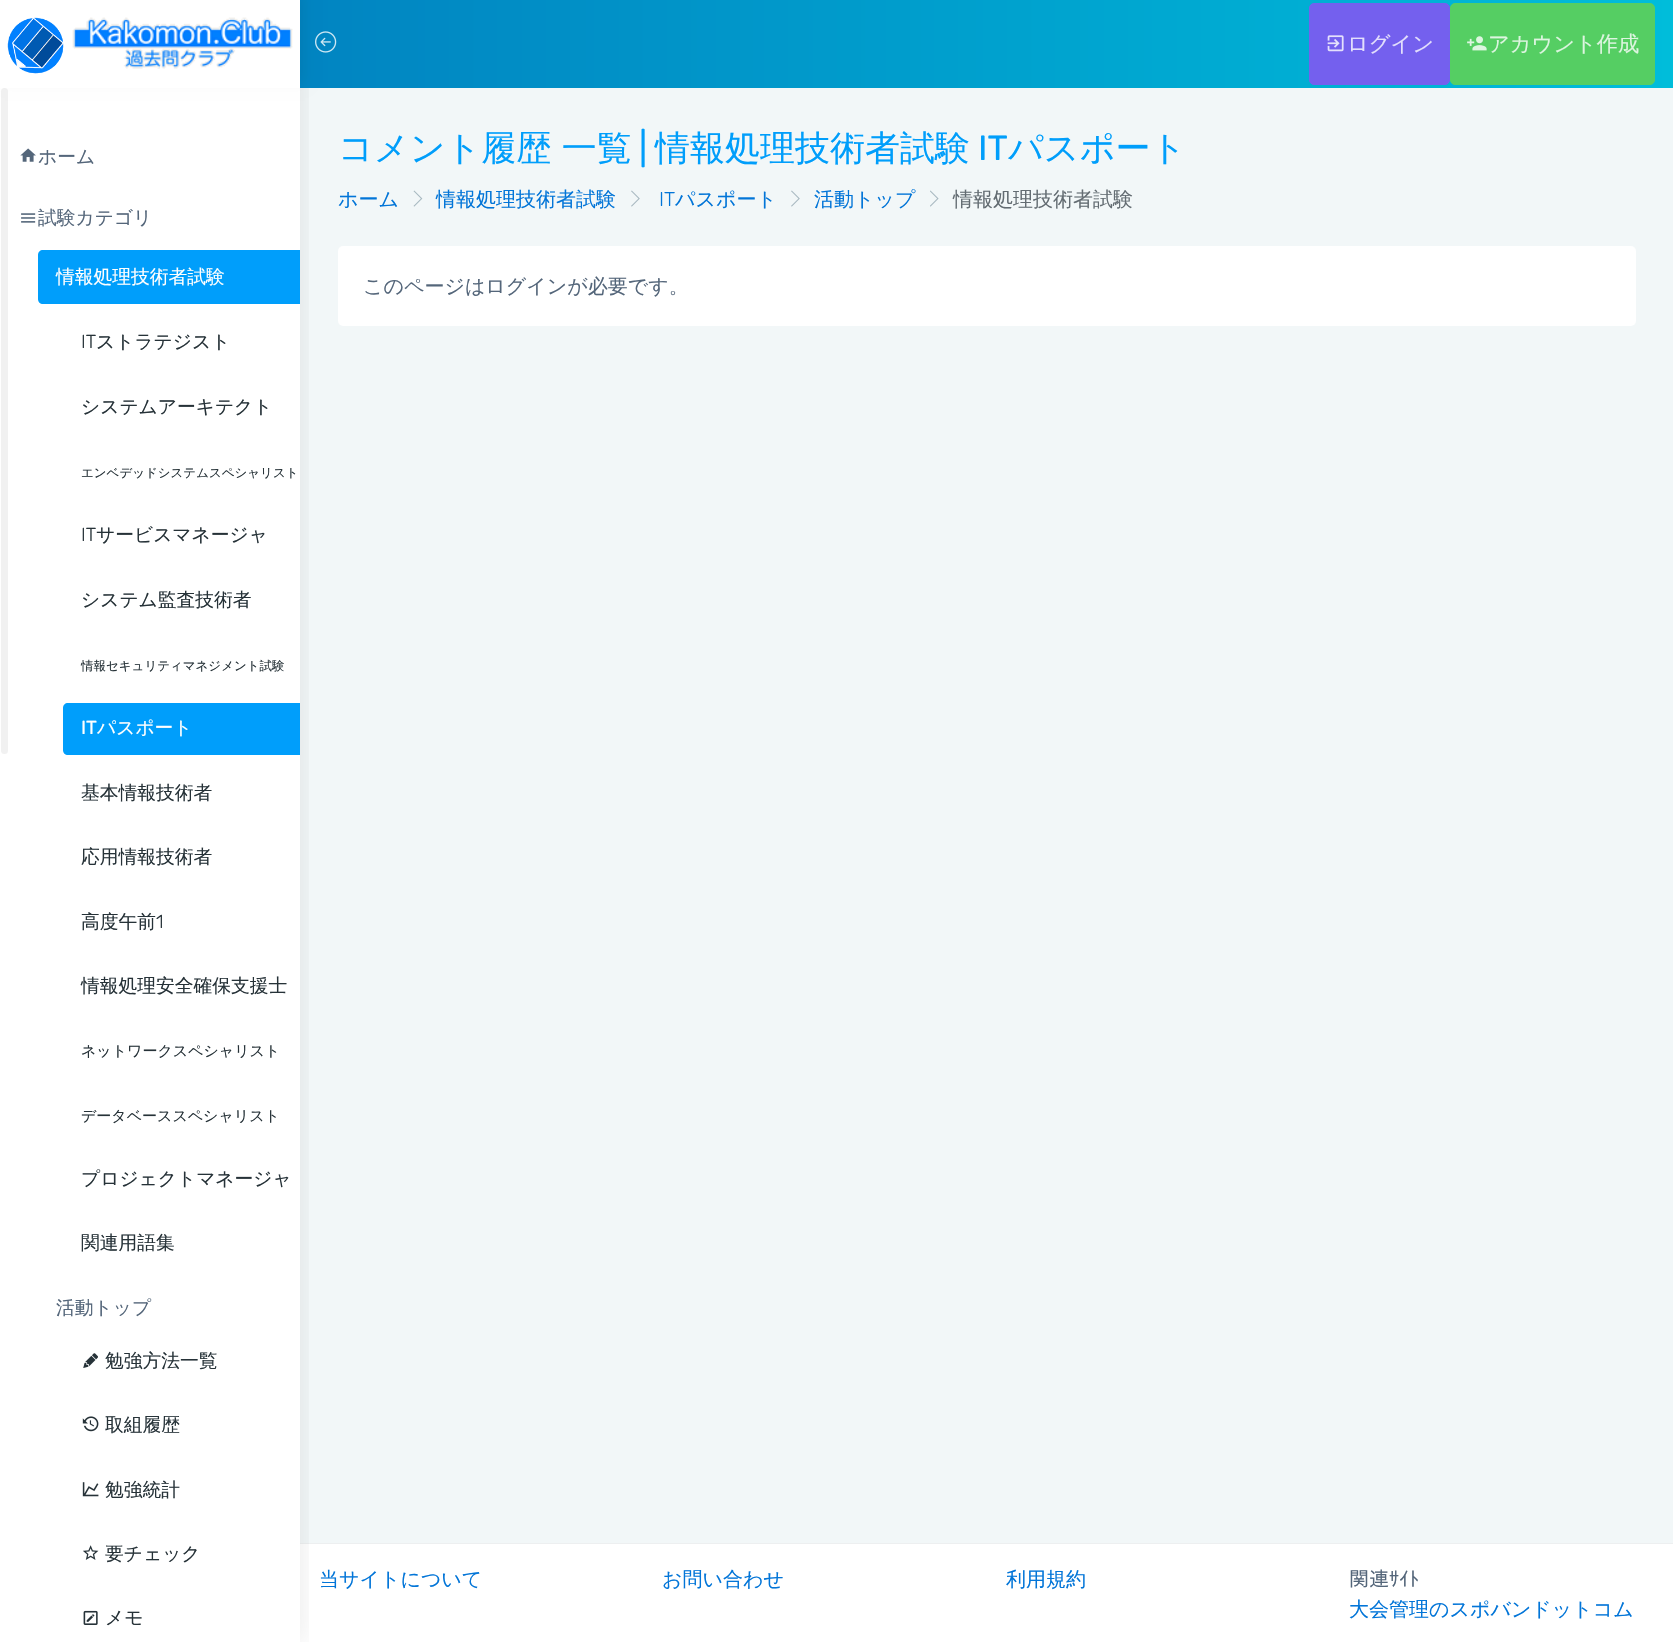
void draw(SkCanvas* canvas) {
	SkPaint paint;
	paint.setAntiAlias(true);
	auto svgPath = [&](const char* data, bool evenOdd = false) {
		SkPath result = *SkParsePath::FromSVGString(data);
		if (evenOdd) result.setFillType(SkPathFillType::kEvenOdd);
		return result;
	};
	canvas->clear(0xffffffff);
	paint.setColor(0xfff2f7f8);
	canvas->drawRect(SkRect::MakeXYWH(300, 88, 1373, 1455), paint);
	paint.setColor(0xffffffff);
	canvas->drawRoundRect(SkRect::MakeXYWH(338, 246, 1298, 80), 5, 5, paint);
	paint.setColor(0xffedeff0);
	canvas->drawRect(SkRect::MakeXYWH(300, 1543, 1373, 1), paint);
	canvas->save();
	canvas->clipRect(SkRect::MakeXYWH(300, 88, 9, 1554));
	paint.setColor(0x14000000);
	paint.setMaskFilter(SkMaskFilter::MakeBlur(kNormal_SkBlurStyle, 12.5));
	canvas->drawRect(SkRect::MakeXYWH(1, 0, 300, 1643), paint);
	paint.setMaskFilter(nullptr);
	canvas->restore();
	{
		const SkColor colors[] = {0xff0178bc, 0xff00bdda};
		const float stops[] = {0, 1};
		const SkPoint ends[] = {{0, 44}, {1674, 44}};
		paint.setShader(SkGradientShader::MakeLinear(ends, colors, stops, 2, SkTileMode::kClamp));
		paint.setAlpha(255);
	}
	canvas->drawRect(SkRect::MakeXYWH(300, 0, 1373, 88), paint);
	paint.setShader(nullptr);
	paint.setColor(0xfff1f1f1);
	canvas->drawRoundRect(SkRect::MakeXYWH(1, 88, 7, 666), 3.5, 3.5, paint);
	paint.setColor(0x0d000000);
	paint.setMaskFilter(SkMaskFilter::MakeBlur(kNormal_SkBlurStyle, 6));
	canvas->drawRect(SkRect::MakeXYWH(5, -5, 300, 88), paint);
	paint.setMaskFilter(nullptr);
	paint.setColor(0xffffffff);
	canvas->drawRect(SkRect::MakeXYWH(0, 0, 300, 88), paint);
	canvas->drawImageRect(SkImages::DeferredFromEncodedData(SkData::MakeFromFileName("img1.png")), SkRect::MakeXYWH(7, 17, 57, 57), SkSamplingOptions());
	canvas->drawImageRect(SkImages::DeferredFromEncodedData(SkData::MakeFromFileName("img2.png")), SkRect::MakeXYWH(72, 17, 221, 52), SkSamplingOptions());
	canvas->drawImageRect(SkImages::DeferredFromEncodedData(SkData::MakeFromFileName("img3.png")), SkRect::MakeXYWH(315, 31, 22, 22), SkSamplingOptions());
	paint.setColor(0xff7460ee);
	canvas->drawRoundRect(SkRect::MakeXYWH(1309.5, 3.5, 140, 81), 4.5, 4.5, paint);
	paint.setStroke(true);
	paint.setStrokeWidth(1);
	canvas->drawRoundRect(SkRect::MakeXYWH(1309.5, 3.5, 140, 81), 4.5, 4.5, paint);
	canvas->drawImageRect(SkImages::DeferredFromEncodedData(SkData::MakeFromFileName("img4.png")), SkRect::MakeXYWH(1327, 35, 17, 17), SkSamplingOptions());
	SkFont f1(fontMgr->matchFamilyStyle("WenQuanYi Zen Hei", SkFontStyle(500, SkFontStyle::kNormal_Width, SkFontStyle::kUpright_Slant)), 21.25);
	f1.setSubpixel(true);
	paint.setStroke(false);
	paint.setColor(0xffe3dffc);
	canvas->drawString("ログイン", 1347, 51, f1, paint);
	paint.setColor(0xff55ce63);
	canvas->drawRoundRect(SkRect::MakeXYWH(1450.5, 3.5, 204, 81), 4.5, 4.5, paint);
	paint.setStroke(true);
	canvas->drawRoundRect(SkRect::MakeXYWH(1450.5, 3.5, 204, 81), 4.5, 4.5, paint);
	canvas->drawImageRect(SkImages::DeferredFromEncodedData(SkData::MakeFromFileName("img5.png")), SkRect::MakeXYWH(1467, 36, 20, 15), SkSamplingOptions());
	paint.setStroke(false);
	paint.setColor(0xffddf5e0);
	canvas->drawString("アカウント作成", 1488, 51, f1, paint);
	canvas->drawImageRect(SkImages::DeferredFromEncodedData(SkData::MakeFromFileName("img6.png")), SkRect::MakeXYWH(20, 148, 16, 14), SkSamplingOptions());
	SkFont f2(fontMgr->matchFamilyStyle("WenQuanYi Zen Hei", SkFontStyle(500, SkFontStyle::kNormal_Width, SkFontStyle::kUpright_Slant)), 18.75);
	f2.setSubpixel(true);
	paint.setColor(0xff54667a);
	canvas->drawString("ホーム", 38, 163, f2, paint);
	canvas->drawImageRect(SkImages::DeferredFromEncodedData(SkData::MakeFromFileName("img7.png")), SkRect::MakeXYWH(21, 213, 15, 10), SkSamplingOptions());
	canvas->drawString("試験カテゴリ", 38, 224, f2, paint);
	paint.setColor(0xff009efb);
	canvas->drawPath(svgPath("M43 250H300V304H43C40 304 38 302 38 299V255C38 252 40 250 43 250Z"), paint);
	paint.setColor(0xffffffff);
	canvas->drawString("情報処理技術者試験", 56, 283, f2, paint);
	SkFont f3(fontMgr->matchFamilyStyle("Rubik", SkFontStyle(300, SkFontStyle::kNormal_Width, SkFontStyle::kUpright_Slant)), 18.75);
	f3.setSubpixel(true);
	paint.setColor(0xff263238);
	canvas->drawString("IT", 81, 348, f3, paint);
	canvas->drawString("ストラテジスト", 96, 348, f2, paint);
	canvas->drawString("システムアーキテクト", 81, 413, f2, paint);
	SkFont f4(fontMgr->matchFamilyStyle("WenQuanYi Zen Hei", SkFontStyle(500, SkFontStyle::kNormal_Width, SkFontStyle::kUpright_Slant)), 12.5);
	f4.setSubpixel(true);
	canvas->drawString("エンベデッドシステムスペシャリスト", 81, 477, f4, paint);
	canvas->drawString("IT", 81, 541, f3, paint);
	canvas->drawString("サービスマネージャ", 96, 541, f2, paint);
	canvas->drawString("システム監査技術者", 81, 606, f2, paint);
	canvas->drawString("情報セキュリティマネジメント試験", 81, 670, f4, paint);
	paint.setColor(0xff009efb);
	canvas->drawPath(svgPath("M68 703H300V755H68C65 755 63 753 63 750V708C63 705 65 703 68 703Z"), paint);
	SkFont f5(fontMgr->matchFamilyStyle("Rubik", SkFontStyle::Normal()), 18.75);
	f5.setSubpixel(true);
	paint.setColor(0xffffffff);
	canvas->drawString("IT", 81, 734, f5, paint);
	canvas->drawString("パスポート", 97, 734, f2, paint);
	paint.setColor(0xff263238);
	canvas->drawString("基本情報技術者", 81, 799, f2, paint);
	canvas->drawString("応用情報技術者", 81, 863, f2, paint);
	canvas->drawString("高度午前", 81, 928, f2, paint);
	canvas->drawString("1", 156, 928, f3, paint);
	canvas->drawString("情報処理安全確保支援士", 81, 992, f2, paint);
	SkFont f6(fontMgr->matchFamilyStyle("WenQuanYi Zen Hei", SkFontStyle(500, SkFontStyle::kNormal_Width, SkFontStyle::kUpright_Slant)), 15);
	f6.setSubpixel(true);
	canvas->drawString("ネットワークスペシャリスト", 81, 1056, f6, paint);
	canvas->drawString("データベーススペシャリスト", 81, 1121, f6, paint);
	canvas->drawString("プロジェクトマネージャ", 81, 1185, f2, paint);
	canvas->drawString("関連用語集", 81, 1249, f2, paint);
	paint.setColor(0xff54667a);
	canvas->drawString("活動トップ", 56, 1314, f2, paint);
	canvas->drawImageRect(SkImages::DeferredFromEncodedData(SkData::MakeFromFileName("img8.png")), SkRect::MakeXYWH(83, 1353, 15, 15), SkSamplingOptions());
	paint.setColor(0xff263238);
	canvas->drawString("勉強方法一覧", 105, 1367, f2, paint);
	canvas->drawImageRect(SkImages::DeferredFromEncodedData(SkData::MakeFromFileName("img9.png")), SkRect::MakeXYWH(82, 1416, 17, 16), SkSamplingOptions());
	canvas->drawString("取組履歴", 105, 1431, f2, paint);
	canvas->drawImageRect(SkImages::DeferredFromEncodedData(SkData::MakeFromFileName("img10.png")), SkRect::MakeXYWH(82, 1482, 17, 15), SkSamplingOptions());
	canvas->drawString("勉強統計", 105, 1496, f2, paint);
	canvas->drawImageRect(SkImages::DeferredFromEncodedData(SkData::MakeFromFileName("img11.png")), SkRect::MakeXYWH(83, 1545, 16, 15), SkSamplingOptions());
	canvas->drawString("要チェック", 105, 1560, f2, paint);
	canvas->drawImageRect(SkImages::DeferredFromEncodedData(SkData::MakeFromFileName("img12.png")), SkRect::MakeXYWH(83, 1610, 15, 15), SkSamplingOptions());
	canvas->drawString("メモ", 105, 1624, f2, paint);
	SkFont f7(fontMgr->matchFamilyStyle("WenQuanYi Zen Hei", SkFontStyle(500, SkFontStyle::kNormal_Width, SkFontStyle::kUpright_Slant)), 35);
	f7.setSubpixel(true);
	paint.setColor(0xff009efb);
	canvas->drawString("コメント履歴 一覧", 338, 160, f7, paint);
	SkFont f8(fontMgr->matchFamilyStyle("Rubik", SkFontStyle::Normal()), 35);
	f8.setSubpixel(true);
	canvas->drawString("|", 639, 160, f8, paint);
	canvas->drawString("情報処理技術者試験", 655, 160, f7, paint);
	canvas->drawString("IT", 978, 160, f8, paint);
	canvas->drawString("パスポート", 1008, 160, f7, paint);
	SkFont f9(fontMgr->matchFamilyStyle("WenQuanYi Zen Hei", SkFontStyle(500, SkFontStyle::kNormal_Width, SkFontStyle::kUpright_Slant)), 20);
	f9.setSubpixel(true);
	paint.setColor(0xff0275d8);
	canvas->drawString("ホーム", 338, 206, f9, paint);
	canvas->drawImageRect(SkImages::DeferredFromEncodedData(SkData::MakeFromFileName("img13.png")), SkRect::MakeXYWH(413, 190, 10, 17), SkSamplingOptions());
	canvas->drawString("情報処理技術者試験", 436, 206, f9, paint);
	canvas->drawImageRect(SkImages::DeferredFromEncodedData(SkData::MakeFromFileName("img14.png")), SkRect::MakeXYWH(631, 190, 9, 17), SkSamplingOptions());
	SkFont f10(fontMgr->matchFamilyStyle("Rubik", SkFontStyle(300, SkFontStyle::kNormal_Width, SkFontStyle::kUpright_Slant)), 20);
	f10.setSubpixel(true);
	canvas->drawString("IT", 659, 206, f10, paint);
	canvas->drawString("パスポート", 675, 206, f9, paint);
	canvas->drawImageRect(SkImages::DeferredFromEncodedData(SkData::MakeFromFileName("img14.png")), SkRect::MakeXYWH(791, 190, 9, 17), SkSamplingOptions());
	canvas->drawString("活動トップ", 814, 206, f9, paint);
	canvas->drawImageRect(SkImages::DeferredFromEncodedData(SkData::MakeFromFileName("img15.png")), SkRect::MakeXYWH(930, 190, 9, 17), SkSamplingOptions());
	paint.setColor(0xff636c72);
	canvas->drawString("情報処理技術者試験", 953, 206, f9, paint);
	paint.setColor(0xff54667a);
	canvas->drawString("このページはログインが必要です。", 363, 293, f9, paint);
	paint.setColor(0xff0275d8);
	canvas->drawString("当サイトについて", 319, 1586, f9, paint);
	canvas->drawString("お問い合わせ", 662, 1586, f9, paint);
	canvas->drawString("利用規約", 1006, 1586, f9, paint);
	SkFont f11(fontMgr->matchFamilyStyle("IPAPGothic", SkFontStyle::Normal()), 20);
	f11.setSubpixel(true);
	paint.setColor(0xff54667a);
	canvas->drawString("関連ｻｲﾄ", 1349, 1586, f11, paint);
	paint.setColor(0xff0275d8);
	canvas->drawString("大会管理のスポバンドットコム", 1349, 1616, f9, paint);
}
